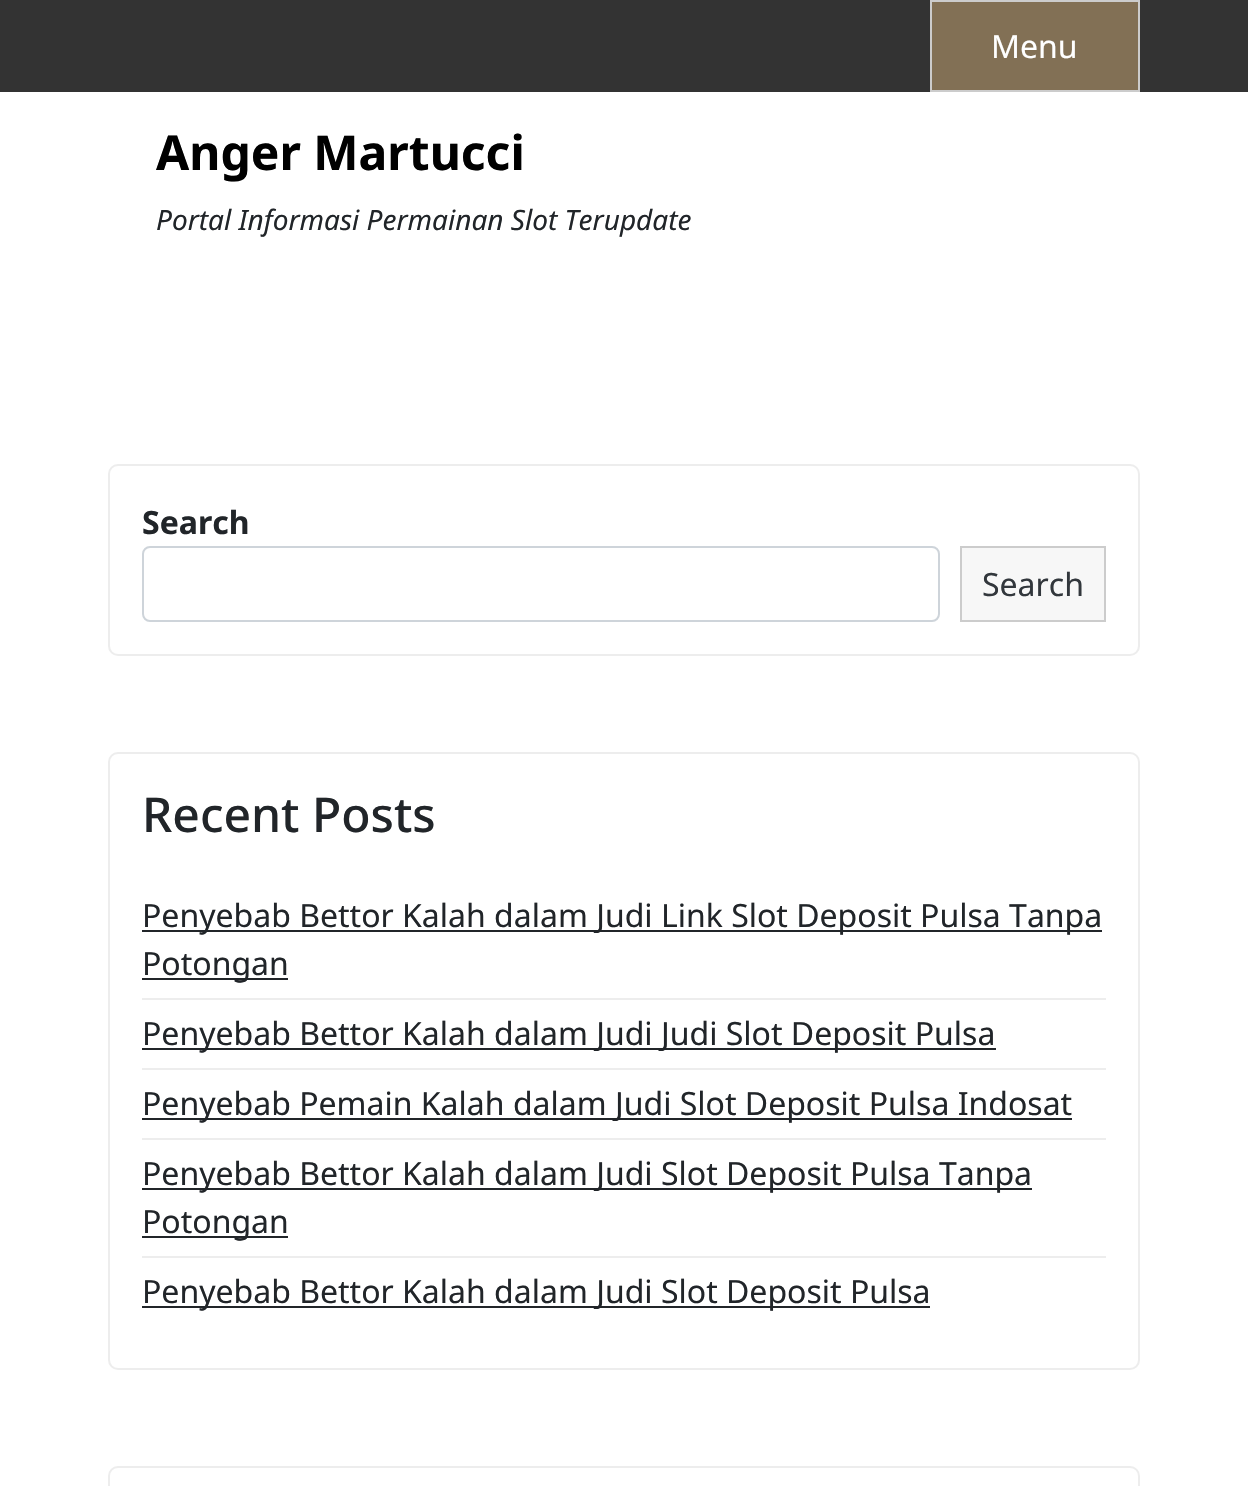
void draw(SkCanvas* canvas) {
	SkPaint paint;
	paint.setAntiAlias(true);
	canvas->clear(0xffffffff);
	paint.setColor(0xff333333);
	canvas->drawRect(SkRect::MakeXYWH(0, 0, 1248, 92), paint);
	paint.setColor(0xff827055);
	canvas->drawRect(SkRect::MakeXYWH(931, 1, 208, 90), paint);
	paint.setStroke(true);
	paint.setStrokeWidth(2);
	paint.setColor(0xffcccccc);
	canvas->drawRect(SkRect::MakeXYWH(931, 1, 208, 90), paint);
	SkFont f1(fontMgr->matchFamilyStyle("Noto Sans", SkFontStyle::Normal()), 32);
	f1.setSubpixel(true);
	paint.setStroke(false);
	paint.setColor(0xffffffff);
	canvas->drawString("Menu", 991, 58, f1, paint);
	SkFont f2(fontMgr->matchFamilyStyle("Noto Sans", SkFontStyle::Bold()), 48);
	f2.setSubpixel(true);
	paint.setColor(0xff000000);
	canvas->drawString("Anger Martucci", 156, 170, f2, paint);
	SkFont f3(fontMgr->matchFamilyStyle("Noto Sans", SkFontStyle::Italic()), 28);
	f3.setSubpixel(true);
	paint.setColor(0xff212529);
	canvas->drawString("Portal Informasi Permainan Slot Terupdate", 156, 230, f3, paint);
	paint.setStroke(true);
	paint.setColor(0xffededed);
	canvas->drawRoundRect(SkRect::MakeXYWH(109, 465, 1030, 190), 9, 9, paint);
	SkFont f4(fontMgr->matchFamilyStyle("Noto Sans", SkFontStyle::Bold()), 32);
	f4.setSubpixel(true);
	paint.setStroke(false);
	paint.setColor(0xff212529);
	canvas->drawString("Search", 142, 534, f4, paint);
	paint.setStroke(true);
	paint.setColor(0xffced4da);
	canvas->drawRoundRect(SkRect::MakeXYWH(143, 547, 796, 74), 7, 7, paint);
	paint.setStroke(false);
	paint.setColor(0xfff7f7f7);
	canvas->drawRect(SkRect::MakeXYWH(961, 547, 144, 74), paint);
	paint.setStroke(true);
	paint.setColor(0xffcccccc);
	canvas->drawRect(SkRect::MakeXYWH(961, 547, 144, 74), paint);
	paint.setStroke(false);
	paint.setColor(0xff32373c);
	canvas->drawString("Search", 982, 596, f1, paint);
	paint.setStroke(true);
	paint.setColor(0xffededed);
	canvas->drawRoundRect(SkRect::MakeXYWH(109, 753, 1030, 616), 9, 9, paint);
	SkFont f5(fontMgr->matchFamilyStyle("Noto Sans", SkFontStyle(500, SkFontStyle::kNormal_Width, SkFontStyle::kUpright_Slant)), 48);
	f5.setSubpixel(true);
	paint.setStroke(false);
	paint.setColor(0xff212529);
	canvas->drawString("Recent Posts", 142, 832, f5, paint);
	paint.setColor(0xffededed);
	canvas->drawRect(SkRect::MakeXYWH(142, 998, 964, 2), paint);
	paint.setColor(0xff212529);
	canvas->drawRect(SkRect::MakeXYWH(142, 930, 960, 2), paint);
	canvas->drawString("Penyebab Bettor Kalah dalam Judi Link Slot Deposit Pulsa Tanpa", 142, 927, f1, paint);
	canvas->drawRect(SkRect::MakeXYWH(142, 978, 146, 2), paint);
	canvas->drawString("Potongan", 142, 975, f1, paint);
	paint.setColor(0xffededed);
	canvas->drawRect(SkRect::MakeXYWH(142, 1068, 964, 2), paint);
	paint.setColor(0xff212529);
	canvas->drawRect(SkRect::MakeXYWH(142, 1048, 854, 2), paint);
	canvas->drawString("Penyebab Bettor Kalah dalam Judi Judi Slot Deposit Pulsa", 142, 1045, f1, paint);
	paint.setColor(0xffededed);
	canvas->drawRect(SkRect::MakeXYWH(142, 1138, 964, 2), paint);
	paint.setColor(0xff212529);
	canvas->drawRect(SkRect::MakeXYWH(142, 1118, 930, 2), paint);
	canvas->drawString("Penyebab Pemain Kalah dalam Judi Slot Deposit Pulsa Indosat", 142, 1115, f1, paint);
	paint.setColor(0xffededed);
	canvas->drawRect(SkRect::MakeXYWH(142, 1256, 964, 2), paint);
	paint.setColor(0xff212529);
	canvas->drawRect(SkRect::MakeXYWH(142, 1188, 890, 2), paint);
	canvas->drawString("Penyebab Bettor Kalah dalam Judi Slot Deposit Pulsa Tanpa", 142, 1185, f1, paint);
	canvas->drawRect(SkRect::MakeXYWH(142, 1236, 146, 2), paint);
	canvas->drawString("Potongan", 142, 1233, f1, paint);
	canvas->drawRect(SkRect::MakeXYWH(142, 1306, 788, 2), paint);
	canvas->drawString("Penyebab Bettor Kalah dalam Judi Slot Deposit Pulsa", 142, 1303, f1, paint);
	paint.setStroke(true);
	paint.setColor(0xffededed);
	canvas->drawRoundRect(SkRect::MakeXYWH(109, 1467, 1030, 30), 9, 9, paint);
}
